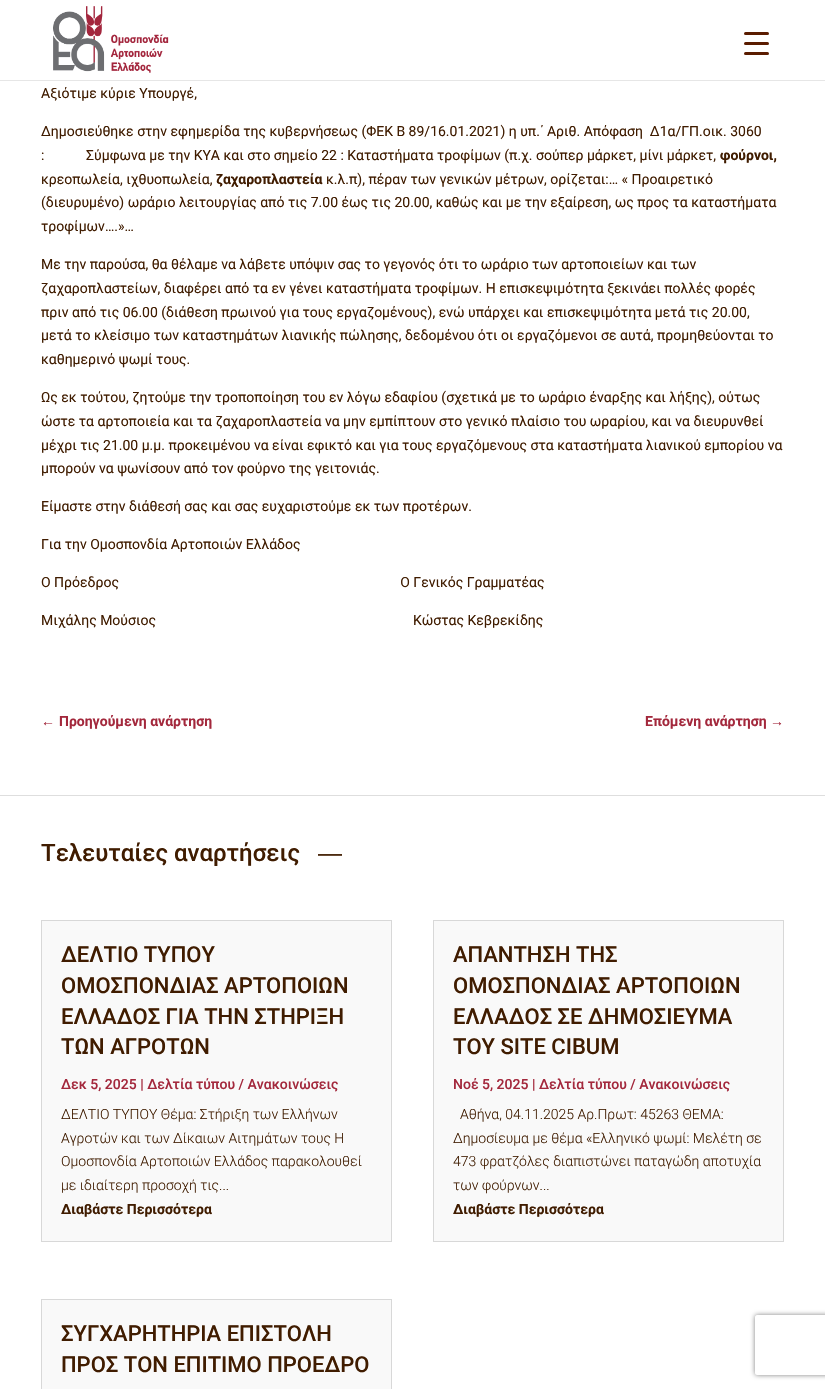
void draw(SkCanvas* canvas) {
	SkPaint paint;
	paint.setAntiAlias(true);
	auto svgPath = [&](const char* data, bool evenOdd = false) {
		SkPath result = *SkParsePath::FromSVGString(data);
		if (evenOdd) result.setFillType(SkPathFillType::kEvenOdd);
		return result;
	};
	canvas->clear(0xffffffff);
	paint.setColor(0xff5a1c00);
	canvas->drawRoundRect(SkRect::MakeXYWH(744, 42, 25, 3), 1.5, 1.5, paint);
	canvas->drawRoundRect(SkRect::MakeXYWH(744, 32, 25, 3), 1.5, 1.5, paint);
	canvas->drawRoundRect(SkRect::MakeXYWH(744, 52, 25, 3), 1.5, 1.5, paint);
	paint.setColor(0xffe6e6e6);
	canvas->drawRect(SkRect::MakeXYWH(0, 80, 825, 1), paint);
	canvas->drawImageRect(SkImages::DeferredFromEncodedData(SkData::MakeFromFileName("img1.png")), SkRect::MakeXYWH(53, 6, 116, 67), SkSamplingOptions());
	SkFont f1(fontMgr->matchFamilyStyle("Roboto", SkFontStyle::Normal()), 14);
	f1.setSubpixel(true);
	paint.setColor(0xff401c00);
	canvas->drawString("Αξιότιμε κύριε Υπουργέ,", 41, 98, f1, paint);
	canvas->drawString("Δημοσιεύθηκε στην εφημερίδα της κυβερνήσεως (ΦΕΚ Β 89/16.01.2021) η υπ.΄ Αριθ. Απόφαση  Δ1α/ΓΠ.οικ. 3060", 41, 136, f1, paint);
	canvas->drawString(":            Σύμφωνα με την ΚΥΑ και στο σημείο 22 : Καταστήματα τροφίμων (π.χ. σούπερ μάρκετ, μίνι μάρκετ,", 41, 160, f1, paint);
	SkFont f2(fontMgr->matchFamilyStyle("Roboto", SkFontStyle::Bold()), 14);
	f2.setSubpixel(true);
	canvas->drawString("φούρνοι,", 720, 160, f2, paint);
	canvas->drawString("κρεοπωλεία, ιχθυοπωλεία,", 41, 184, f1, paint);
	canvas->drawString("ζαχαροπλαστεία", 216, 184, f2, paint);
	canvas->drawString("κ.λ.π), πέραν των γενικών μέτρων, ορίζεται:… « Προαιρετικό", 326, 184, f1, paint);
	canvas->drawString("(διευρυμένο) ωράριο λειτουργίας από τις 7.00 έως τις 20.00, καθώς και με την εξαίρεση, ως προς τα καταστήματα", 41, 207, f1, paint);
	canvas->drawString("τροφίμων….»…", 41, 231, f1, paint);
	canvas->drawString("Με την παρούσα, θα θέλαμε να λάβετε υπόψιν σας το γεγονός ότι το ωράριο των αρτοποιείων και των", 41, 269, f1, paint);
	canvas->drawString("ζαχαροπλαστείων, διαφέρει από τα εν γένει καταστήματα τροφίμων. Η επισκεψιμότητα ξεκινάει πολλές φορές", 41, 293, f1, paint);
	canvas->drawString("πριν από τις 06.00 (διάθεση πρωινού για τους εργαζομένους), ενώ υπάρχει και επισκεψιμότητα μετά τις 20.00,", 41, 317, f1, paint);
	canvas->drawString("μετά το κλείσιμο των καταστημάτων λιανικής πώλησης, δεδομένου ότι οι εργαζόμενοι σε αυτά, προμηθεύονται το", 41, 340, f1, paint);
	canvas->drawString("καθημερινό ψωμί τους.", 41, 364, f1, paint);
	canvas->drawString("Ως εκ τούτου, ζητούμε την τροποποίηση του εν λόγω εδαφίου (σχετικά με το ωράριο έναρξης και λήξης), ούτως", 41, 402, f1, paint);
	canvas->drawString("ώστε τα αρτοποιεία και τα ζαχαροπλαστεία να μην εμπίπτουν στο γενικό πλαίσιο του ωραρίου, και να διευρυνθεί", 41, 426, f1, paint);
	canvas->drawString("μέχρι τις 21.00 μ.μ. προκειμένου να είναι εφικτό και για τους εργαζόμενους στα καταστήματα λιανικού εμπορίου να", 41, 450, f1, paint);
	canvas->drawString("μπορούν να ψωνίσουν από τον φούρνο της γειτονιάς.", 41, 473, f1, paint);
	canvas->drawString("Είμαστε στην διάθεσή σας και σας ευχαριστούμε εκ των προτέρων.", 41, 511, f1, paint);
	canvas->drawString("Για την Ομοσπονδία Αρτοποιών Ελλάδος", 41, 549, f1, paint);
	canvas->drawString("Ο Πρόεδρος                                                                                 Ο Γενικός Γραμματέας", 41, 587, f1, paint);
	canvas->drawString("Μιχάλης Μούσιος                                                                          Κώστας Κεβρεκίδης", 41, 625, f1, paint);
	SkFont f3(fontMgr->matchFamilyStyle("Liberation Sans", SkFontStyle::Bold()), 14);
	f3.setSubpixel(true);
	paint.setColor(0xffa3283c);
	canvas->drawString("←", 41, 726, f3, paint);
	canvas->drawString("Προηγούμενη ανάρτηση", 59, 726, f2, paint);
	canvas->drawString("Επόμενη ανάρτηση", 645, 726, f2, paint);
	canvas->drawString("→", 770, 726, f3, paint);
	paint.setColor(0xffdedede);
	canvas->drawRect(SkRect::MakeXYWH(0, 795, 825, 1), paint);
	SkFont f4(fontMgr->matchFamilyStyle("Roboto", SkFontStyle(500, SkFontStyle::kNormal_Width, SkFontStyle::kUpright_Slant)), 24);
	f4.setSubpixel(true);
	paint.setColor(0xff401c00);
	canvas->drawString("Τελευταίες αναρτήσεις", 41, 861, f4, paint);
	SkFont f5(fontMgr->matchFamilyStyle("Liberation Sans", SkFontStyle::Normal()), 24);
	f5.setSubpixel(true);
	canvas->drawString("―", 318, 861, f5, paint);
	paint.setColor(0xfff9f9f9);
	canvas->drawRect(SkRect::MakeXYWH(41.5, 920.5, 350, 321), paint);
	paint.setStroke(true);
	paint.setStrokeWidth(1);
	paint.setColor(0xffd8d8d8);
	canvas->drawRect(SkRect::MakeXYWH(41.5, 920.5, 350, 321), paint);
	SkFont f6(fontMgr->matchFamilyStyle("Roboto", SkFontStyle(500, SkFontStyle::kNormal_Width, SkFontStyle::kUpright_Slant)), 22);
	f6.setSubpixel(true);
	paint.setStroke(false);
	paint.setColor(0xff401c00);
	canvas->drawString("ΔΕΛΤΙΟ ΤΥΠΟΥ", 61, 962, f6, paint);
	canvas->drawString("ΟΜΟΣΠΟΝΔΙΑΣ ΑΡΤΟΠΟΙΩΝ", 61, 993, f6, paint);
	canvas->drawString("ΕΛΛΑΔΟΣ ΓΙΑ ΤΗΝ ΣΤΗΡΙΞΗ", 61, 1024, f6, paint);
	canvas->drawString("ΤΩΝ ΑΓΡΟΤΩΝ", 61, 1054, f6, paint);
	SkFont f7(fontMgr->matchFamilyStyle("Roboto", SkFontStyle(500, SkFontStyle::kNormal_Width, SkFontStyle::kUpright_Slant)), 14);
	f7.setSubpixel(true);
	paint.setColor(0xffa3283c);
	canvas->drawString("Δεκ 5, 2025 | Δελτία τύπου / Ανακοινώσεις", 61, 1089, f7, paint);
	SkFont f8(fontMgr->matchFamilyStyle("Roboto", SkFontStyle(300, SkFontStyle::kNormal_Width, SkFontStyle::kUpright_Slant)), 14);
	f8.setSubpixel(true);
	paint.setColor(0xff401c00);
	canvas->drawString("ΔΕΛΤΙΟ ΤΥΠΟΥ Θέμα: Στήριξη των Ελλήνων", 61, 1119, f8, paint);
	canvas->drawString("Αγροτών και των Δίκαιων Αιτημάτων τους Η", 61, 1143, f8, paint);
	canvas->drawString("Ομοσπονδία Αρτοποιών Ελλάδος παρακολουθεί", 61, 1166, f8, paint);
	canvas->drawString("με ιδιαίτερη προσοχή τις...", 61, 1190, f8, paint);
	canvas->drawString("Διαβάστε Περισσότερα", 61, 1214, f2, paint);
	paint.setColor(0xfff9f9f9);
	canvas->drawRect(SkRect::MakeXYWH(41.5, 1299.5, 350, 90), paint);
	paint.setStroke(true);
	paint.setColor(0xffd8d8d8);
	canvas->drawRect(SkRect::MakeXYWH(41.5, 1299.5, 350, 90), paint);
	paint.setStroke(false);
	paint.setColor(0xff401c00);
	canvas->drawString("ΣΥΓΧΑΡΗΤΗΡΙΑ ΕΠΙΣΤΟΛΗ", 61, 1341, f6, paint);
	canvas->drawString("ΠΡΟΣ ΤΟΝ ΕΠΙΤΙΜΟ ΠΡΟΕΔΡΟ", 61, 1372, f6, paint);
	paint.setColor(0xfff9f9f9);
	canvas->drawRect(SkRect::MakeXYWH(433.5, 920.5, 350, 321), paint);
	paint.setStroke(true);
	paint.setColor(0xffd8d8d8);
	canvas->drawRect(SkRect::MakeXYWH(433.5, 920.5, 350, 321), paint);
	paint.setStroke(false);
	paint.setColor(0xff401c00);
	canvas->drawString("ΑΠΑΝΤΗΣΗ ΤΗΣ", 453, 962, f6, paint);
	canvas->drawString("ΟΜΟΣΠΟΝΔΙΑΣ ΑΡΤΟΠΟΙΩΝ", 453, 993, f6, paint);
	canvas->drawString("ΕΛΛΑΔΟΣ ΣΕ ΔΗΜΟΣΙΕΥΜΑ", 453, 1024, f6, paint);
	canvas->drawString("ΤΟΥ SITE CIBUM", 453, 1054, f6, paint);
	paint.setColor(0xffa3283c);
	canvas->drawString("Νοέ 5, 2025 | Δελτία τύπου / Ανακοινώσεις", 453, 1089, f7, paint);
	paint.setColor(0xff401c00);
	canvas->drawString("Αθήνα, 04.11.2025 Αρ.Πρωτ: 45263 ΘΕΜΑ:", 460, 1119, f8, paint);
	canvas->drawString("Δημοσίευμα με θέμα «Ελληνικό ψωμί: Μελέτη σε", 453, 1143, f8, paint);
	canvas->drawString("473 φρατζόλες διαπιστώνει παταγώδη αποτυχία", 453, 1166, f8, paint);
	canvas->drawString("των φούρνων...", 453, 1190, f8, paint);
	canvas->drawString("Διαβάστε Περισσότερα", 453, 1214, f2, paint);
	canvas->save();
	canvas->clipPath(svgPath("M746 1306H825V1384H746ZM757 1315H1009C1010 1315 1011 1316 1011 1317V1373C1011 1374 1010 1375 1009 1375H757C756 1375 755 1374 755 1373V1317C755 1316 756 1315 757 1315Z", true), true);
	paint.setColor(0xff808080);
	paint.setMaskFilter(SkMaskFilter::MakeBlur(kNormal_SkBlurStyle, 2.5));
	canvas->drawRoundRect(SkRect::MakeXYWH(755, 1315, 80, 60), 2, 2, paint);
	paint.setMaskFilter(nullptr);
	canvas->restore();
}
